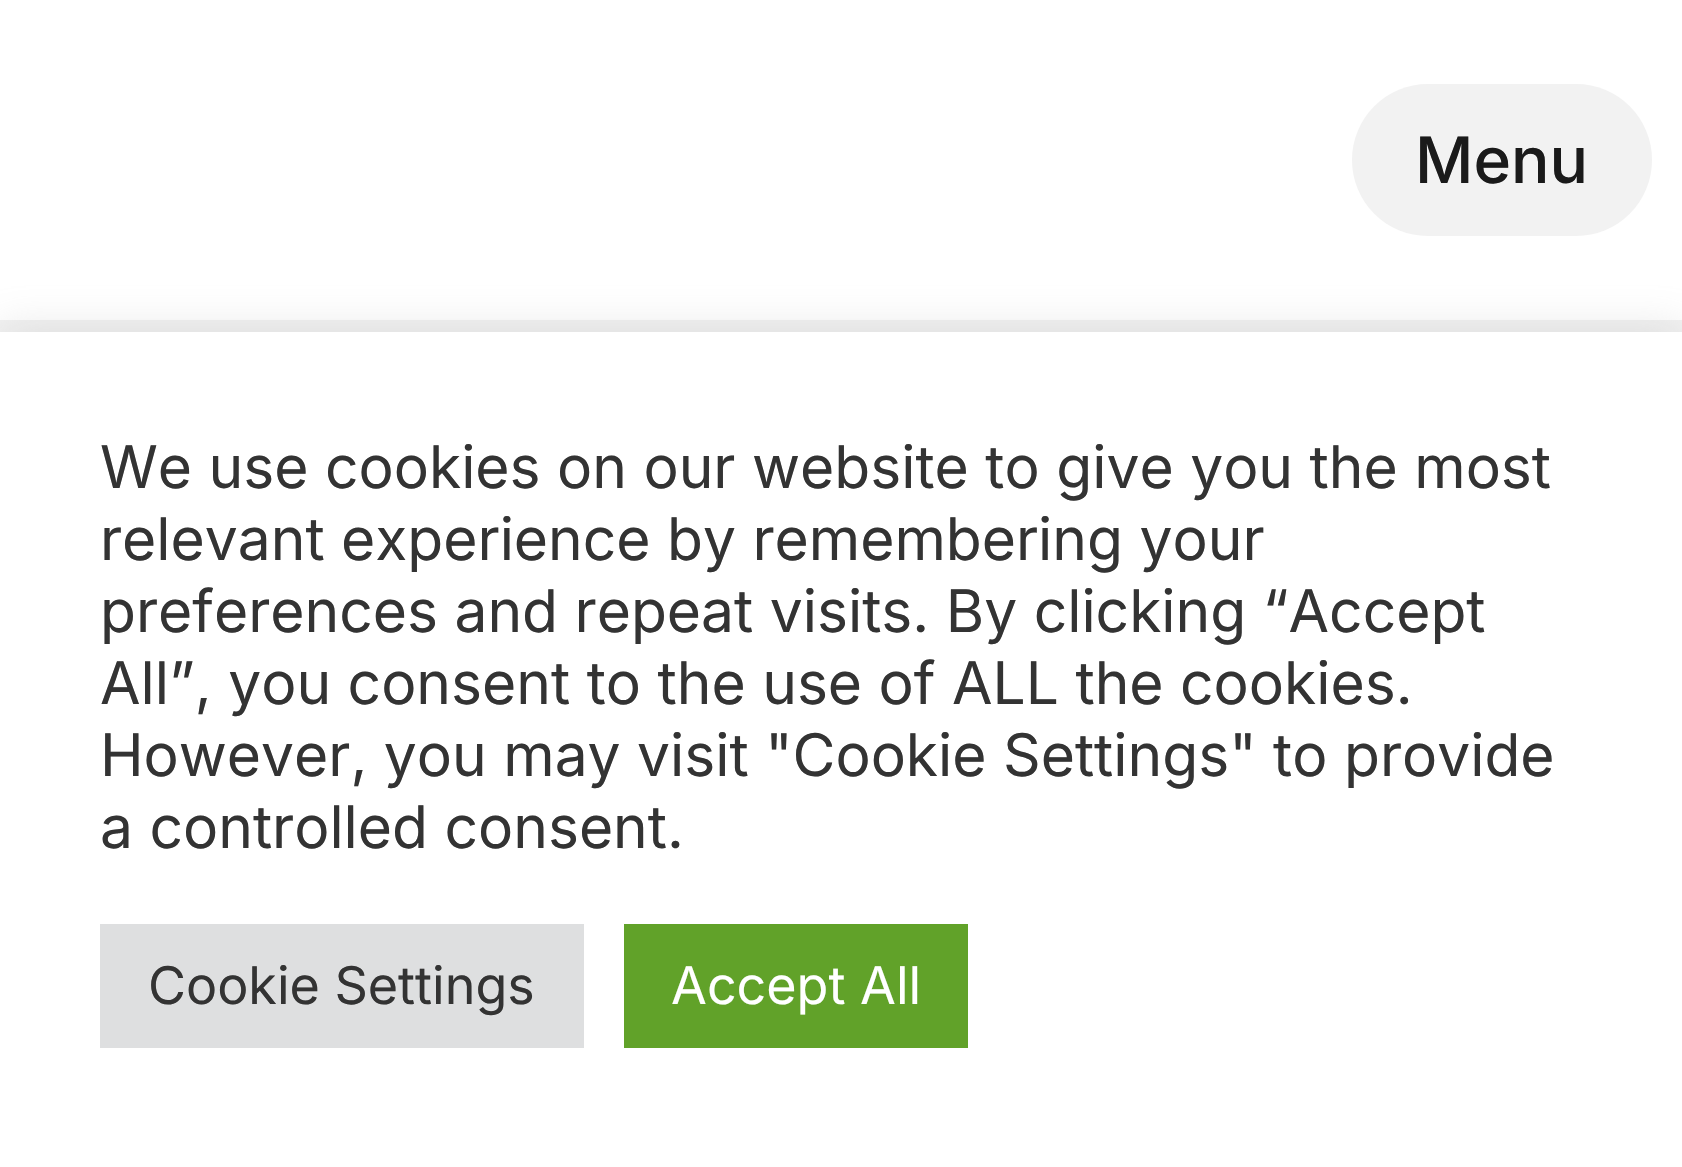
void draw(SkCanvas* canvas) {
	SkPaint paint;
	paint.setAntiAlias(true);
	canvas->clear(0xffffffff);
	paint.setColor(0xfff2f2f2);
	canvas->drawRoundRect(SkRect::MakeXYWH(1352, 84, 300, 152), 76, 76, paint);
	SkFont f1(fontMgr->matchFamilyStyle("Inter", SkFontStyle(500, SkFontStyle::kNormal_Width, SkFontStyle::kUpright_Slant)), 64);
	f1.setSubpixel(true);
	paint.setColor(0xff1a1a1a);
	canvas->drawString("Menu", 1415, 183, f1, paint);
	paint.setColor(0xfff2f2f2);
	canvas->drawRect(SkRect::MakeXYWH(0, 320, 1682, 12), paint);
	paint.setColor(0x4dacabab);
	paint.setMaskFilter(SkMaskFilter::MakeBlur(kNormal_SkBlurStyle, 20));
	canvas->drawRect(SkRect::MakeXYWH(0, 328, 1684, 836), paint);
	paint.setMaskFilter(nullptr);
	paint.setColor(0xffffffff);
	canvas->drawRect(SkRect::MakeXYWH(0, 332, 1682, 835), paint);
	SkFont f2(fontMgr->matchFamilyStyle("Inter", SkFontStyle::Normal()), 58.7);
	f2.setSubpixel(true);
	paint.setColor(0xff333333);
	canvas->drawString("We use cookies on our website to give you the most", 100, 488, f2, paint);
	canvas->drawString("relevant experience by remembering your", 100, 560, f2, paint);
	canvas->drawString("preferences and repeat visits. By clicking “Accept", 100, 632, f2, paint);
	canvas->drawString("All”, you consent to the use of ALL the cookies.", 100, 704, f2, paint);
	canvas->drawString("However, you may visit \"Cookie Settings\" to provide", 100, 776, f2, paint);
	canvas->drawString("a controlled consent.", 100, 848, f2, paint);
	paint.setColor(0xffdedfe0);
	canvas->drawRect(SkRect::MakeXYWH(100, 924, 484, 124), paint);
	SkFont f3(fontMgr->matchFamilyStyle("Inter", SkFontStyle::Normal()), 52);
	f3.setSubpixel(true);
	paint.setColor(0xff333333);
	canvas->drawString("Cookie Settings", 148, 1004, f3, paint);
	paint.setColor(0xff61a229);
	canvas->drawRect(SkRect::MakeXYWH(624, 924, 344, 124), paint);
	paint.setColor(0xffffffff);
	canvas->drawString("Accept All", 671, 1004, f3, paint);
}
